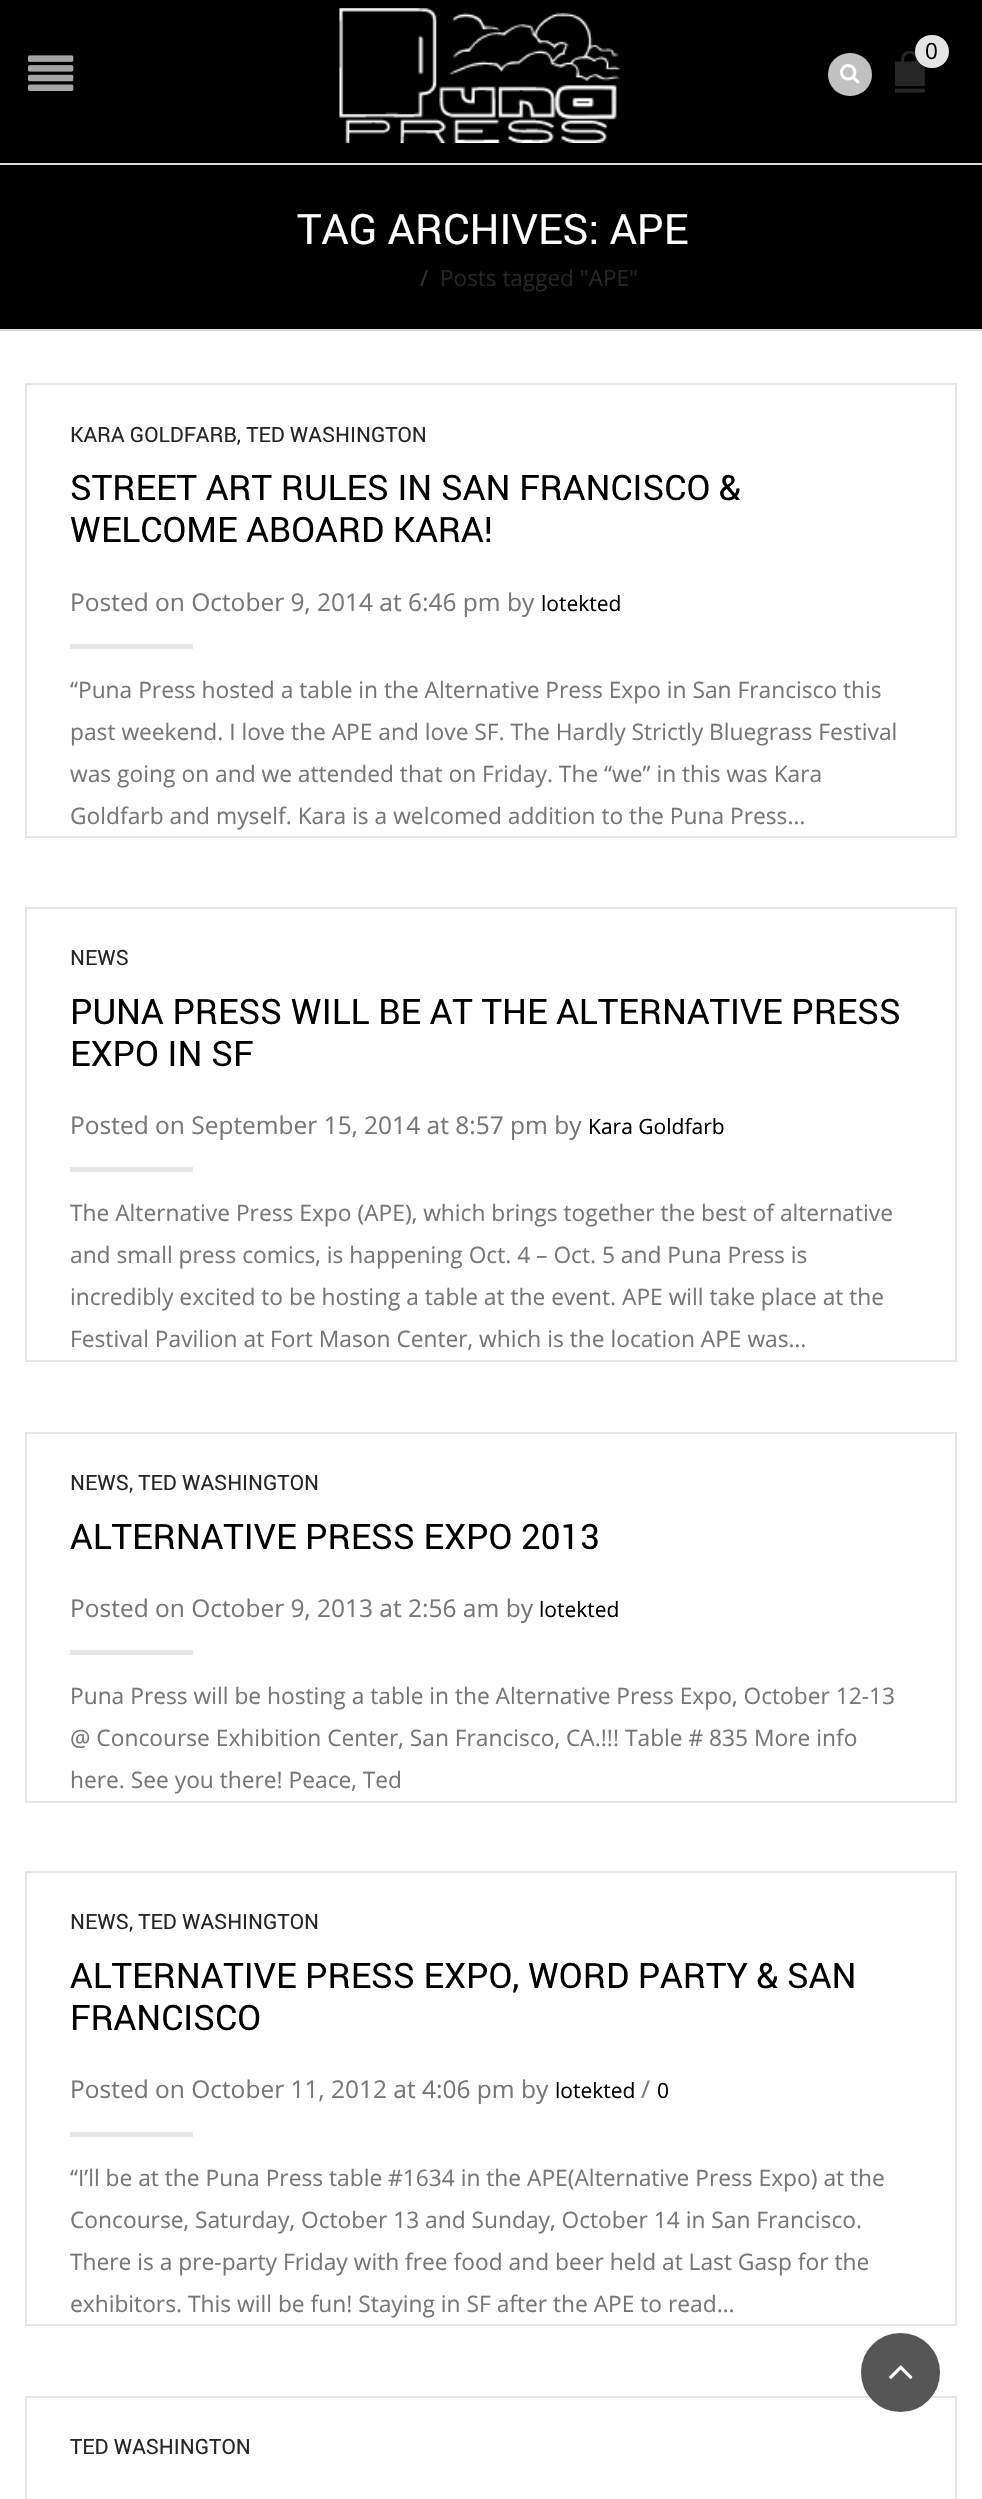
void draw(SkCanvas* canvas) {
	SkPaint paint;
	paint.setAntiAlias(true);
	canvas->clear(0xffffffff);
	paint.setColor(0xff000000);
	canvas->drawRect(SkRect::MakeXYWH(0, 0, 982, 163), paint);
	canvas->drawImageRect(SkImages::DeferredFromEncodedData(SkData::MakeFromFileName("img1.png")), SkRect::MakeXYWH(339, 8, 281, 135), SkSamplingOptions());
	canvas->drawImageRect(SkImages::DeferredFromEncodedData(SkData::MakeFromFileName("img2.png")), SkRect::MakeXYWH(895, 51, 30, 42), SkSamplingOptions());
	paint.setColor(0xffe4e4e4);
	canvas->drawRoundRect(SkRect::MakeXYWH(915, 35, 34, 33), 16.5, 16.5, paint);
	SkFont f1(fontMgr->matchFamilyStyle("Open Sans", SkFontStyle::Normal()), 22.5);
	f1.setSubpixel(true);
	paint.setColor(0xff000000);
	canvas->drawString("0", 925, 59, f1, paint);
	paint.setColor(0xffc1c1c1);
	canvas->drawRoundRect(SkRect::MakeXYWH(828, 53, 44, 43), 21.5, 21.5, paint);
	canvas->drawImageRect(SkImages::DeferredFromEncodedData(SkData::MakeFromFileName("img3.png")), SkRect::MakeXYWH(840, 64, 20, 20), SkSamplingOptions());
	canvas->drawImageRect(SkImages::DeferredFromEncodedData(SkData::MakeFromFileName("img4.png")), SkRect::MakeXYWH(28, 55, 46, 36), SkSamplingOptions());
	paint.setColor(0xff000000);
	canvas->drawRect(SkRect::MakeXYWH(0, 165, 982, 164), paint);
	paint.setColor(0xffdddddd);
	canvas->drawRect(SkRect::MakeXYWH(0, 163, 982, 2), paint);
	canvas->drawRect(SkRect::MakeXYWH(0, 329, 982, 2), paint);
	SkFont f2(fontMgr->matchFamilyStyle("Roboto", SkFontStyle::Normal()), 42);
	f2.setSubpixel(true);
	paint.setColor(0xffffffff);
	canvas->drawString("TAG ARCHIVES: APE", 297, 244, f2, paint);
	paint.setColor(0xff333333);
	canvas->drawString("/", 420, 286, f1, paint);
	paint.setColor(0xff262626);
	canvas->drawString("Posts tagged \"APE\"", 440, 286, f1, paint);
	paint.setStroke(true);
	paint.setStrokeWidth(2);
	paint.setColor(0xffe5e5e5);
	canvas->drawRect(SkRect::MakeXYWH(26, 384, 930, 453), paint);
	SkFont f3(fontMgr->matchFamilyStyle("Roboto", SkFontStyle::Normal()), 21);
	f3.setSubpixel(true);
	paint.setStroke(false);
	paint.setColor(0xff262626);
	canvas->drawString("KARA GOLDFARB, TED WASHINGTON", 70, 442, f3, paint);
	SkFont f4(fontMgr->matchFamilyStyle("Roboto", SkFontStyle::Normal()), 35);
	f4.setSubpixel(true);
	paint.setColor(0xff000000);
	canvas->drawString("STREET ART RULES IN SAN FRANCISCO &", 70, 500, f4, paint);
	canvas->drawString("WELCOME ABOARD KARA!", 70, 542, f4, paint);
	SkFont f5(fontMgr->matchFamilyStyle("Open Sans", SkFontStyle::Normal()), 24.5);
	f5.setSubpixel(true);
	paint.setColor(0xff767676);
	canvas->drawString("Posted on October 9, 2014 at 6:46 pm by", 70, 611, f5, paint);
	SkFont f6(fontMgr->matchFamilyStyle("Open Sans", SkFontStyle::Normal()), 21);
	f6.setSubpixel(true);
	paint.setColor(0xff000000);
	canvas->drawString("lotekted", 541, 611, f6, paint);
	paint.setColor(0xffe5e5e5);
	canvas->drawRect(SkRect::MakeXYWH(70, 644, 123, 5), paint);
	SkFont f7(fontMgr->matchFamilyStyle("Open Sans", SkFontStyle::Normal()), 22.75);
	f7.setSubpixel(true);
	paint.setColor(0xff767676);
	canvas->drawString("“Puna Press hosted a table in the Alternative Press Expo in San Francisco this", 70, 698, f7, paint);
	canvas->drawString("past weekend. I love the APE and love SF. The Hardly Strictly Bluegrass Festival", 70, 740, f7, paint);
	canvas->drawString("was going on and we attended that on Friday. The “we” in this was Kara", 70, 782, f7, paint);
	canvas->drawString("Goldfarb and myself. Kara is a welcomed addition to the Puna Press…", 70, 824, f7, paint);
	paint.setStroke(true);
	paint.setColor(0xffe5e5e5);
	canvas->drawRect(SkRect::MakeXYWH(26, 908, 930, 453), paint);
	paint.setStroke(false);
	paint.setColor(0xff262626);
	canvas->drawString("NEWS", 70, 965, f3, paint);
	paint.setColor(0xff000000);
	canvas->drawString("PUNA PRESS WILL BE AT THE ALTERNATIVE PRESS", 70, 1024, f4, paint);
	canvas->drawString("EXPO IN SF", 70, 1066, f4, paint);
	paint.setColor(0xff767676);
	canvas->drawString("Posted on September 15, 2014 at 8:57 pm by", 70, 1134, f5, paint);
	paint.setColor(0xff000000);
	canvas->drawString("Kara Goldfarb", 588, 1134, f6, paint);
	paint.setColor(0xffe5e5e5);
	canvas->drawRect(SkRect::MakeXYWH(70, 1167, 123, 5), paint);
	paint.setColor(0xff767676);
	canvas->drawString("The Alternative Press Expo (APE), which brings together the best of alternative", 70, 1221, f7, paint);
	canvas->drawString("and small press comics, is happening Oct. 4 – Oct. 5 and Puna Press is", 70, 1263, f7, paint);
	canvas->drawString("incredibly excited to be hosting a table at the event. APE will take place at the", 70, 1305, f7, paint);
	canvas->drawString("Festival Pavilion at Fort Mason Center, which is the location APE was…", 70, 1347, f7, paint);
	paint.setStroke(true);
	paint.setColor(0xffe5e5e5);
	canvas->drawRect(SkRect::MakeXYWH(26, 1433, 930, 369), paint);
	paint.setStroke(false);
	paint.setColor(0xff262626);
	canvas->drawString("NEWS, TED WASHINGTON", 70, 1490, f3, paint);
	paint.setColor(0xff000000);
	canvas->drawString("ALTERNATIVE PRESS EXPO 2013", 70, 1549, f4, paint);
	paint.setColor(0xff767676);
	canvas->drawString("Posted on October 9, 2013 at 2:56 am by", 70, 1617, f5, paint);
	paint.setColor(0xff000000);
	canvas->drawString("lotekted", 539, 1617, f6, paint);
	paint.setColor(0xffe5e5e5);
	canvas->drawRect(SkRect::MakeXYWH(70, 1650, 123, 5), paint);
	paint.setColor(0xff767676);
	canvas->drawString("Puna Press will be hosting a table in the Alternative Press Expo, October 12-13", 70, 1704, f7, paint);
	canvas->drawString("@ Concourse Exhibition Center, San Francisco, CA.!!! Table # 835 More info", 70, 1746, f7, paint);
	canvas->drawString("here. See you there! Peace, Ted", 70, 1788, f7, paint);
	paint.setStroke(true);
	paint.setColor(0xffe5e5e5);
	canvas->drawRect(SkRect::MakeXYWH(26, 1872, 930, 453), paint);
	paint.setStroke(false);
	paint.setColor(0xff262626);
	canvas->drawString("NEWS, TED WASHINGTON", 70, 1929, f3, paint);
	paint.setColor(0xff000000);
	canvas->drawString("ALTERNATIVE PRESS EXPO, WORD PARTY & SAN", 70, 1988, f4, paint);
	canvas->drawString("FRANCISCO", 70, 2030, f4, paint);
	paint.setColor(0xff767676);
	canvas->drawString("Posted on October 11, 2012 at 4:06 pm by", 70, 2098, f5, paint);
	paint.setColor(0xff000000);
	canvas->drawString("lotekted", 555, 2098, f6, paint);
	paint.setColor(0xff767676);
	canvas->drawString("/", 641, 2098, f5, paint);
	paint.setColor(0xff000000);
	canvas->drawString("0", 657, 2098, f6, paint);
	paint.setColor(0xffe5e5e5);
	canvas->drawRect(SkRect::MakeXYWH(70, 2132, 123, 5), paint);
	paint.setColor(0xff767676);
	canvas->drawString("“I’ll be at the Puna Press table #1634 in the APE(Alternative Press Expo) at the", 70, 2186, f7, paint);
	canvas->drawString("Concourse, Saturday, October 13 and Sunday, October 14 in San Francisco.", 70, 2228, f7, paint);
	canvas->drawString("There is a pre-party Friday with free food and beer held at Last Gasp for the", 70, 2270, f7, paint);
	canvas->drawString("exhibitors. This will be fun! Staying in SF after the APE to read…", 70, 2312, f7, paint);
	paint.setStroke(true);
	paint.setColor(0xffe5e5e5);
	canvas->drawRect(SkRect::MakeXYWH(26, 2397, 930, 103), paint);
	paint.setStroke(false);
	paint.setColor(0xff262626);
	canvas->drawString("TED WASHINGTON", 70, 2454, f3, paint);
	paint.setColor(0xff565656);
	canvas->drawCircle(900.5, 2372.5, 37.5, paint);
	paint.setStroke(true);
	paint.setStrokeWidth(4);
	canvas->drawCircle(900.5, 2372.5, 37.5, paint);
	canvas->drawImageRect(SkImages::DeferredFromEncodedData(SkData::MakeFromFileName("img5.png")), SkRect::MakeXYWH(889, 2365, 24, 14), SkSamplingOptions());
}
